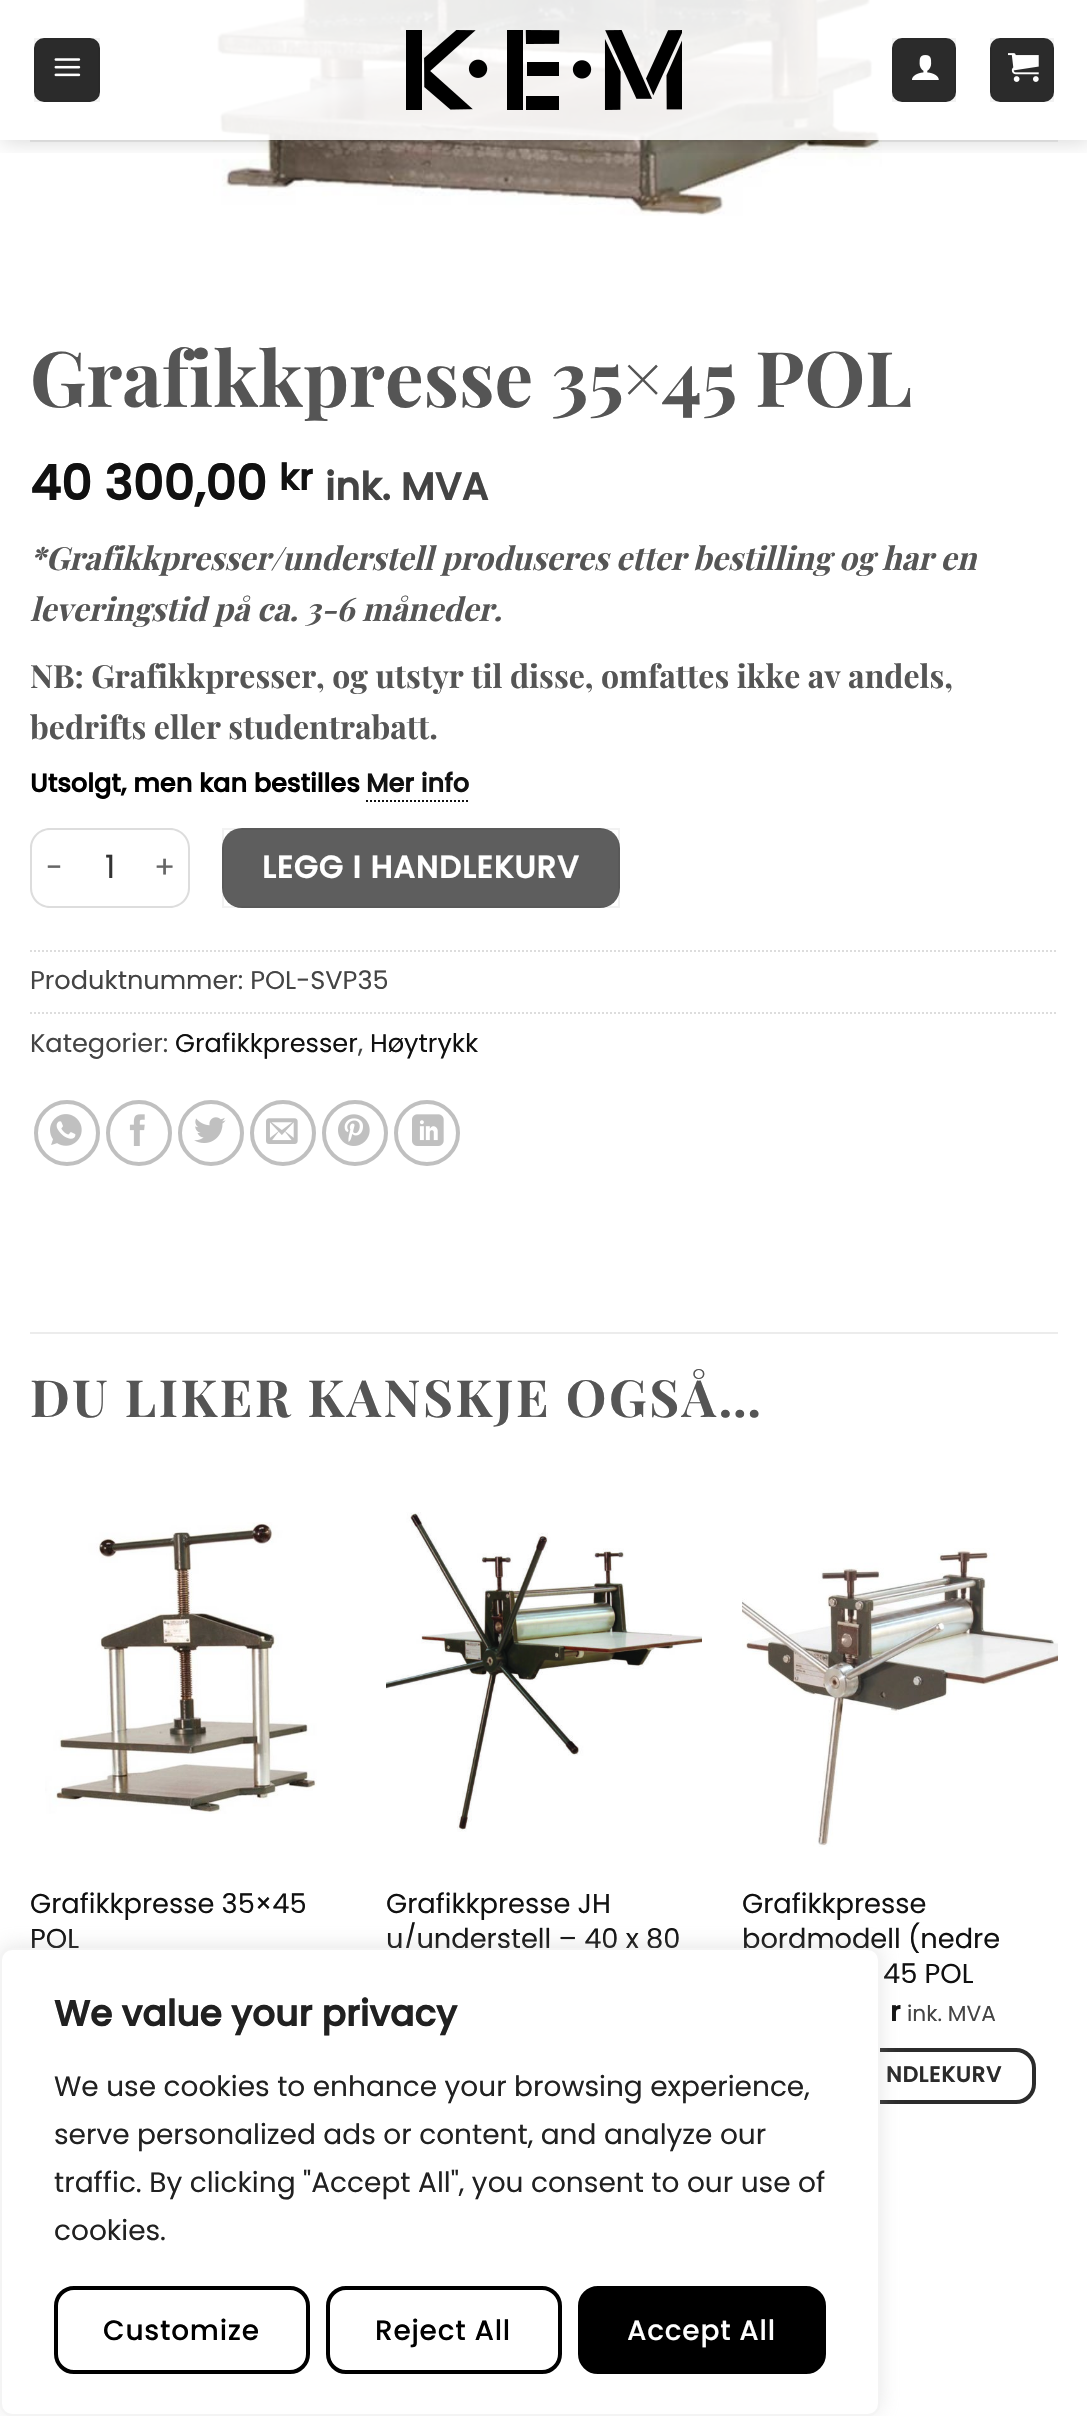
void draw(SkCanvas* canvas) {
	SkPaint paint;
	paint.setAntiAlias(true);
	auto spacedText = [&](const char* s, float x, float y, const SkFont& font, const SkPaint& ink, float letter, float word) {
		std::vector<SkGlyphID> glyphs(font.countText(s, strlen(s), SkTextEncoding::kUTF8));
		std::vector<float> xs(glyphs.size());
		font.textToGlyphs(s, strlen(s), SkTextEncoding::kUTF8, glyphs);
		font.getXPos(glyphs, xs, x);
		float extra = 0;
		for (size_t i = 0; i < glyphs.size(); i++) {
			xs[i] += extra;
			extra += letter + word * (glyphs[i] == font.unicharToGlyph(' '));
		}
		canvas->drawTextBlob(SkTextBlob::MakeFromPosHGlyphs(glyphs, xs, y, font), 0, 0, ink);
	};
	auto svgPath = [&](const char* data, bool evenOdd = false) {
		SkPath result = *SkParsePath::FromSVGString(data);
		if (evenOdd) result.setFillType(SkPathFillType::kEvenOdd);
		return result;
	};
	canvas->clear(0xffffffff);
	canvas->drawImageRect(SkImages::DeferredFromEncodedData(SkData::MakeFromFileName("img5.png")), SkRect::MakeXYWH(213, 0, 669, 216), SkSamplingOptions());
	canvas->save();
	canvas->clipRect(SkRect::MakeXYWH(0, 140, 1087, 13));
	paint.setColor(0x26000000);
	paint.setMaskFilter(SkMaskFilter::MakeBlur(kNormal_SkBlurStyle, 10));
	canvas->drawRect(SkRect::MakeXYWH(2, 2, 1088, 140), paint);
	paint.setMaskFilter(nullptr);
	canvas->restore();
	paint.setColor(0xe6ffffff);
	canvas->drawRect(SkRect::MakeXYWH(213, 0, 669, 140), paint);
	paint.setColor(0xff2b2b2b);
	canvas->drawRoundRect(SkRect::MakeXYWH(34, 38, 66, 64), 10, 10, paint);
	paint.setStroke(true);
	paint.setStrokeWidth(2);
	paint.setColor(0x0d000000);
	canvas->drawRect(SkRect::MakeXYWH(35, 39, 64, 62), paint);
	canvas->drawImageRect(SkImages::DeferredFromEncodedData(SkData::MakeFromFileName("img1.png")), SkRect::MakeXYWH(54, 58, 27, 19), SkSamplingOptions());
	canvas->drawImageRect(SkImages::DeferredFromEncodedData(SkData::MakeFromFileName("img2.png")), SkRect::MakeXYWH(406, 30, 276, 80), SkSamplingOptions());
	paint.setStroke(false);
	paint.setColor(0xff2b2b2b);
	canvas->drawRoundRect(SkRect::MakeXYWH(892, 38, 64, 64), 10, 10, paint);
	paint.setStroke(true);
	paint.setColor(0x0d000000);
	canvas->drawRect(SkRect::MakeXYWH(893, 39, 62, 62), paint);
	canvas->drawImageRect(SkImages::DeferredFromEncodedData(SkData::MakeFromFileName("img3.png")), SkRect::MakeXYWH(912, 55, 27, 25), SkSamplingOptions());
	paint.setStroke(false);
	paint.setColor(0xff2b2b2b);
	canvas->drawRoundRect(SkRect::MakeXYWH(990, 38, 64, 64), 10, 10, paint);
	paint.setStroke(true);
	paint.setColor(0x0d000000);
	canvas->drawRect(SkRect::MakeXYWH(991, 39, 62, 62), paint);
	canvas->drawImageRect(SkImages::DeferredFromEncodedData(SkData::MakeFromFileName("img4.png")), SkRect::MakeXYWH(1008, 53, 31, 29), SkSamplingOptions());
	paint.setStroke(false);
	paint.setColor(0x1a444444);
	canvas->drawRect(SkRect::MakeXYWH(30, 140, 1028, 2), paint);
	SkFont f1(fontMgr->matchFamilyStyle("Playfair Display", SkFontStyle::Bold()), 76.75);
	f1.setSubpixel(true);
	paint.setColor(0xff555555);
	canvas->drawString("Grafikkpresse 35×45 POL", 30, 407, f1, paint);
	SkFont f2(fontMgr->matchFamilyStyle("Poppins", SkFontStyle::Bold()), 48);
	f2.setSubpixel(true);
	paint.setColor(0xff111111);
	canvas->drawString("40 300,00", 30, 500, f2, paint);
	SkFont f3(fontMgr->matchFamilyStyle("Poppins", SkFontStyle::Bold()), 36);
	f3.setSubpixel(true);
	canvas->drawString("kr", 279, 490, f3, paint);
	SkFont f4(fontMgr->matchFamilyStyle("Poppins", SkFontStyle::Bold()), 38.5);
	f4.setSubpixel(true);
	paint.setColor(0xff444444);
	canvas->drawString("ink. MVA", 325, 500, f4, paint);
	SkFont f5(fontMgr->matchFamilyStyle("Playfair Display", SkFontStyle::BoldItalic()), 32);
	f5.setSubpixel(true);
	paint.setColor(0xff555555);
	canvas->drawString("*Grafikkpresser/understell produseres etter bestilling og har en", 30, 570, f5, paint);
	canvas->drawString("leveringstid på ca. 3-6 måneder.", 30, 621, f5, paint);
	SkFont f6(fontMgr->matchFamilyStyle("Playfair Display", SkFontStyle::Bold()), 32);
	f6.setSubpixel(true);
	canvas->drawString("NB: Grafikkpresser, og utstyr til disse, omfattes ikke av andels,", 30, 688, f6, paint);
	canvas->drawString("bedrifts eller studentrabatt.", 30, 739, f6, paint);
	SkFont f7(fontMgr->matchFamilyStyle("Poppins", SkFontStyle::Bold()), 25.6);
	f7.setSubpixel(true);
	paint.setColor(0xff000000);
	canvas->drawString("Utsolgt, men kan bestilles", 30, 792, f7, paint);
	paint.setColor(0xff111111);
	canvas->drawString("Mer info", 366, 792, f7, paint);
	paint.setStroke(true);
	paint.setPathEffect(SkDashPathEffect::Make({{2, 2}}, 0));
	canvas->drawPath(svgPath("M366 801H470"), paint);
	paint.setPathEffect(nullptr);
	paint.setStroke(false);
	paint.setColor(0xffdddddd);
	canvas->drawPath(svgPath("M50 828H78V908H50C39 908 30 899 30 888V848C30 837 39 828 50 828ZM50 830H78V906H50C40 906 32 898 32 888V848C32 838 40 830 50 830Z", true), paint);
	SkFont f8(fontMgr->matchFamilyStyle("Poppins", SkFontStyle::Normal()), 31);
	f8.setSubpixel(true);
	paint.setColor(0xff666666);
	spacedText("-", 46, 878, f8, paint, 0.9, 0);
	paint.setColor(0xffdddddd);
	canvas->drawRect(SkRect::MakeXYWH(78, 828, 64, 2), paint);
	canvas->drawRect(SkRect::MakeXYWH(78, 906, 64, 2), paint);
	SkFont f9(fontMgr->matchFamilyStyle("Poppins", SkFontStyle::Normal()), 32);
	f9.setSubpixel(true);
	paint.setColor(0xff333333);
	canvas->drawString("1", 105, 878, f9, paint);
	paint.setColor(0xffdddddd);
	canvas->drawPath(svgPath("M142 828H170C181 828 190 837 190 848V888C190 899 181 908 170 908H142ZM142 830H170C180 830 188 838 188 848V888C188 898 180 906 170 906H142Z", true), paint);
	paint.setColor(0xff666666);
	spacedText("+", 154, 878, f8, paint, 0.9, 0);
	paint.setColor(0xff5e5e5e);
	canvas->drawRoundRect(SkRect::MakeXYWH(222, 828, 398, 80), 20, 20, paint);
	paint.setStroke(true);
	paint.setColor(0x0d000000);
	canvas->drawRect(SkRect::MakeXYWH(223, 829, 396, 78), paint);
	SkFont f10(fontMgr->matchFamilyStyle("Poppins", SkFontStyle::Bold()), 31);
	f10.setSubpixel(true);
	paint.setStroke(false);
	paint.setColor(0xffffffff);
	spacedText("LEGG I HANDLEKURV", 262, 878, f10, paint, 0.9, 0);
	paint.setStroke(true);
	paint.setColor(0xffdddddd);
	paint.setPathEffect(SkDashPathEffect::Make({{2, 2}}, 0));
	canvas->drawPath(svgPath("M30 951H1058"), paint);
	paint.setPathEffect(nullptr);
	SkFont f11(fontMgr->matchFamilyStyle("Poppins", SkFontStyle::Normal()), 25.6);
	f11.setSubpixel(true);
	paint.setStroke(false);
	paint.setColor(0xff444444);
	canvas->drawString("Produktnummer: POL-SVP35", 30, 989, f11, paint);
	paint.setStroke(true);
	paint.setColor(0xffdddddd);
	paint.setPathEffect(SkDashPathEffect::Make({{2, 2}}, 0));
	canvas->drawPath(svgPath("M30 1013H1058"), paint);
	paint.setPathEffect(nullptr);
	paint.setStroke(false);
	paint.setColor(0xff444444);
	canvas->drawString("Kategorier:", 30, 1052, f11, paint);
	paint.setColor(0xff111111);
	canvas->drawString("Grafikkpresser", 175, 1052, f11, paint);
	paint.setColor(0xff444444);
	canvas->drawString(",", 358, 1052, f11, paint);
	paint.setColor(0xff111111);
	canvas->drawString("Høytrykk", 370, 1052, f11, paint);
	paint.setStroke(true);
	paint.setStrokeWidth(4);
	paint.setColor(0xffc0c0c0);
	canvas->drawCircle(67, 1133, 31, paint);
	canvas->drawImageRect(SkImages::DeferredFromEncodedData(SkData::MakeFromFileName("img6.png")), SkRect::MakeXYWH(50, 1114, 32, 32), SkSamplingOptions());
	canvas->drawCircle(139, 1133, 31, paint);
	canvas->drawImageRect(SkImages::DeferredFromEncodedData(SkData::MakeFromFileName("img7.png")), SkRect::MakeXYWH(129, 1114, 16, 32), SkSamplingOptions());
	canvas->drawCircle(211, 1133, 31, paint);
	canvas->drawImageRect(SkImages::DeferredFromEncodedData(SkData::MakeFromFileName("img8.png")), SkRect::MakeXYWH(194, 1117, 32, 26), SkSamplingOptions());
	canvas->drawCircle(283, 1133, 31, paint);
	canvas->drawImageRect(SkImages::DeferredFromEncodedData(SkData::MakeFromFileName("img9.png")), SkRect::MakeXYWH(266, 1118, 32, 26), SkSamplingOptions());
	canvas->drawCircle(355, 1133, 31, paint);
	canvas->drawImageRect(SkImages::DeferredFromEncodedData(SkData::MakeFromFileName("img10.png")), SkRect::MakeXYWH(338, 1114, 32, 32), SkSamplingOptions());
	canvas->drawCircle(427, 1133, 31, paint);
	canvas->drawImageRect(SkImages::DeferredFromEncodedData(SkData::MakeFromFileName("img11.png")), SkRect::MakeXYWH(412, 1114, 32, 32), SkSamplingOptions());
	paint.setStroke(false);
	paint.setColor(0xffececec);
	canvas->drawRect(SkRect::MakeXYWH(30, 1332, 1028, 2), paint);
	SkFont f12(fontMgr->matchFamilyStyle("Playfair Display", SkFontStyle::Bold()), 51.25);
	f12.setSubpixel(true);
	paint.setColor(0xff555555);
	spacedText("DU LIKER KANSKJE OGSÅ…", 30, 1417, f12, paint, 2.6, 0);
	canvas->drawImageRect(SkImages::DeferredFromEncodedData(SkData::MakeFromFileName("img12.png")), SkRect::MakeXYWH(45, 1522, 272, 292), SkSamplingOptions());
	SkFont f13(fontMgr->matchFamilyStyle("Poppins", SkFontStyle::Normal()), 27.25);
	f13.setSubpixel(true);
	paint.setColor(0xff111111);
	canvas->drawString("Grafikkpresse 35×45", 30, 1913, f13, paint);
	canvas->drawString("POL", 30, 1948, f13, paint);
	canvas->drawImageRect(SkImages::DeferredFromEncodedData(SkData::MakeFromFileName("img13.png")), SkRect::MakeXYWH(386, 1512, 316, 320), SkSamplingOptions());
	canvas->drawString("Grafikkpresse JH", 386, 1913, f13, paint);
	canvas->drawString("u/understell – 40 x 80", 386, 1948, f13, paint);
	canvas->drawImageRect(SkImages::DeferredFromEncodedData(SkData::MakeFromFileName("img14.png")), SkRect::MakeXYWH(742, 1548, 316, 299), SkSamplingOptions());
	canvas->drawString("Grafikkpresse", 742, 1913, f13, paint);
	canvas->drawString("bordmodell (nedre", 742, 1948, f13, paint);
	canvas->drawString("45 POL", 883, 1983, f13, paint);
	SkFont f14(fontMgr->matchFamilyStyle("Poppins", SkFontStyle::Bold()), 27.25);
	f14.setSubpixel(true);
	canvas->drawString("r", 890, 2021, f14, paint);
	SkFont f15(fontMgr->matchFamilyStyle("Poppins", SkFontStyle::Normal()), 21.75);
	f15.setSubpixel(true);
	paint.setColor(0xff444444);
	canvas->drawString("ink. MVA", 907, 2021, f15, paint);
	paint.setStroke(true);
	paint.setColor(0xff2b2b2b);
	canvas->drawRoundRect(SkRect::MakeXYWH(744, 2050, 290, 52), 18, 18, paint);
	SkFont f16(fontMgr->matchFamilyStyle("Poppins", SkFontStyle::Bold()), 21.75);
	f16.setSubpixel(true);
	paint.setStroke(false);
	spacedText("NDLEKURV", 886, 2082, f16, paint, 0.75, 0);
	paint.setColor(0x4dacabab);
	paint.setMaskFilter(SkMaskFilter::MakeBlur(kNormal_SkBlurStyle, 10));
	canvas->drawRoundRect(SkRect::MakeXYWH(0, 1946, 880, 468), 12, 12, paint);
	paint.setMaskFilter(nullptr);
	paint.setColor(0xffffffff);
	canvas->drawRoundRect(SkRect::MakeXYWH(1, 1949, 878, 466), 11, 11, paint);
	paint.setStroke(true);
	paint.setStrokeWidth(2);
	paint.setColor(0xfff4f4f4);
	canvas->drawRoundRect(SkRect::MakeXYWH(1, 1949, 878, 466), 11, 11, paint);
	paint.setStroke(false);
	paint.setColor(0xff212121);
	canvas->drawString("We value your privacy", 54, 2026, f3, paint);
	SkFont f17(fontMgr->matchFamilyStyle("Poppins", SkFontStyle::Normal()), 28);
	f17.setSubpixel(true);
	canvas->drawString("We use cookies to enhance your browsing experience,", 54, 2096, f17, paint);
	canvas->drawString("serve personalized ads or content, and analyze our", 54, 2144, f17, paint);
	canvas->drawString("traffic. By clicking \"Accept All\", you consent to our use of", 54, 2192, f17, paint);
	canvas->drawString("cookies.", 54, 2240, f17, paint);
	paint.setStroke(true);
	paint.setStrokeWidth(4);
	paint.setColor(0xff000000);
	canvas->drawRoundRect(SkRect::MakeXYWH(56, 2288, 252, 84), 18, 18, paint);
	SkFont f18(fontMgr->matchFamilyStyle("Poppins", SkFontStyle(500, SkFontStyle::kNormal_Width, SkFontStyle::kUpright_Slant)), 28);
	f18.setSubpixel(true);
	paint.setStroke(false);
	spacedText("Customize", 103, 2340, f18, paint, 0.75, 0);
	paint.setStroke(true);
	canvas->drawRoundRect(SkRect::MakeXYWH(328, 2288, 232, 84), 18, 18, paint);
	paint.setStroke(false);
	spacedText("Reject All", 375, 2340, f18, paint, 0.75, 0);
	canvas->drawRoundRect(SkRect::MakeXYWH(580, 2288, 244, 84), 18, 18, paint);
	paint.setStroke(true);
	canvas->drawRoundRect(SkRect::MakeXYWH(580, 2288, 244, 84), 18, 18, paint);
	paint.setStroke(false);
	paint.setColor(0xffffffff);
	spacedText("Accept All", 627, 2340, f18, paint, 0.75, 0);
}
